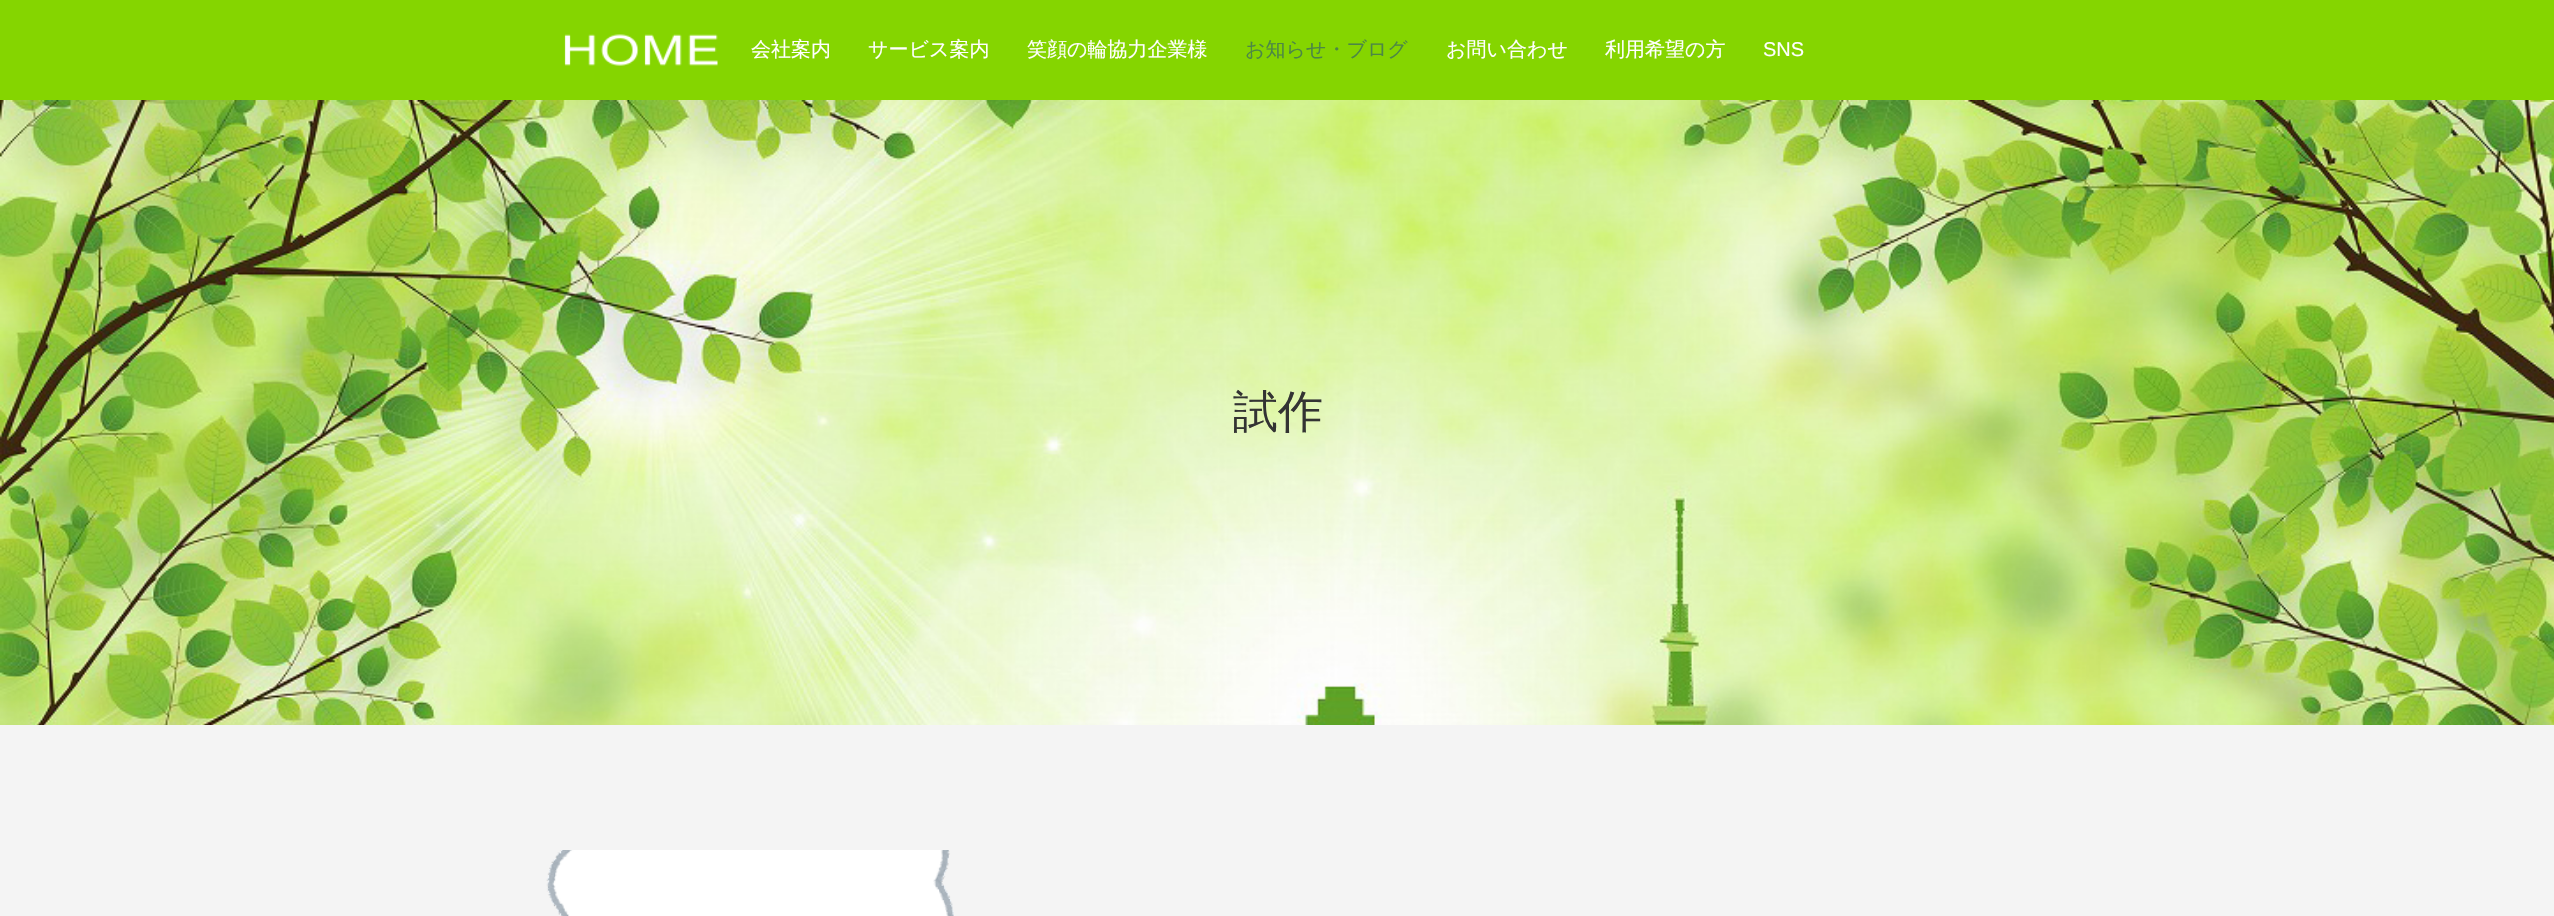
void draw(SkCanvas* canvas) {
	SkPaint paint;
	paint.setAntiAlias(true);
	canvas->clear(0xfff4f4f4);
	paint.setColor(0xff85d500);
	canvas->drawRect(SkRect::MakeXYWH(0, 0, 2554, 100), paint);
	canvas->drawImageRect(SkImages::DeferredFromEncodedData(SkData::MakeFromFileName("img1.png")), SkRect::MakeXYWH(564, 34, 154, 32), SkSamplingOptions());
	SkFont f1(fontMgr->matchFamilyStyle("WenQuanYi Zen Hei", SkFontStyle(500, SkFontStyle::kNormal_Width, SkFontStyle::kUpright_Slant)), 20);
	f1.setSubpixel(true);
	paint.setColor(0xffffffff);
	canvas->drawString("会社案内", 751, 56, f1, paint);
	canvas->drawString("サービス案内", 868, 56, f1, paint);
	canvas->drawString("笑顔の輪協力企業様", 1027, 56, f1, paint);
	paint.setColor(0xff4c8746);
	canvas->drawString("お知らせ・ブログ", 1245, 56, f1, paint);
	paint.setColor(0xffffffff);
	canvas->drawString("お問い合わせ", 1446, 56, f1, paint);
	canvas->drawString("利用希望の方", 1605, 56, f1, paint);
	SkFont f2(fontMgr->matchFamilyStyle("Liberation Sans", SkFontStyle::Normal()), 20);
	f2.setSubpixel(true);
	canvas->drawString("SNS", 1763, 56, f2, paint);
	canvas->drawImageRect(SkImages::DeferredFromEncodedData(SkData::MakeFromFileName("img2.png")), SkRect::MakeXYWH(0, 100, 2554, 625), SkSamplingOptions());
	SkFont f3(fontMgr->matchFamilyStyle("WenQuanYi Zen Hei", SkFontStyle(500, SkFontStyle::kNormal_Width, SkFontStyle::kUpright_Slant)), 45);
	f3.setSubpixel(true);
	paint.setColor(0xff333333);
	canvas->drawString("試作", 1233, 427, f3, paint);
	canvas->drawImageRect(SkImages::DeferredFromEncodedData(SkData::MakeFromFileName("img3.png")), SkRect::MakeXYWH(546, 850, 408, 66), SkSamplingOptions());
}
